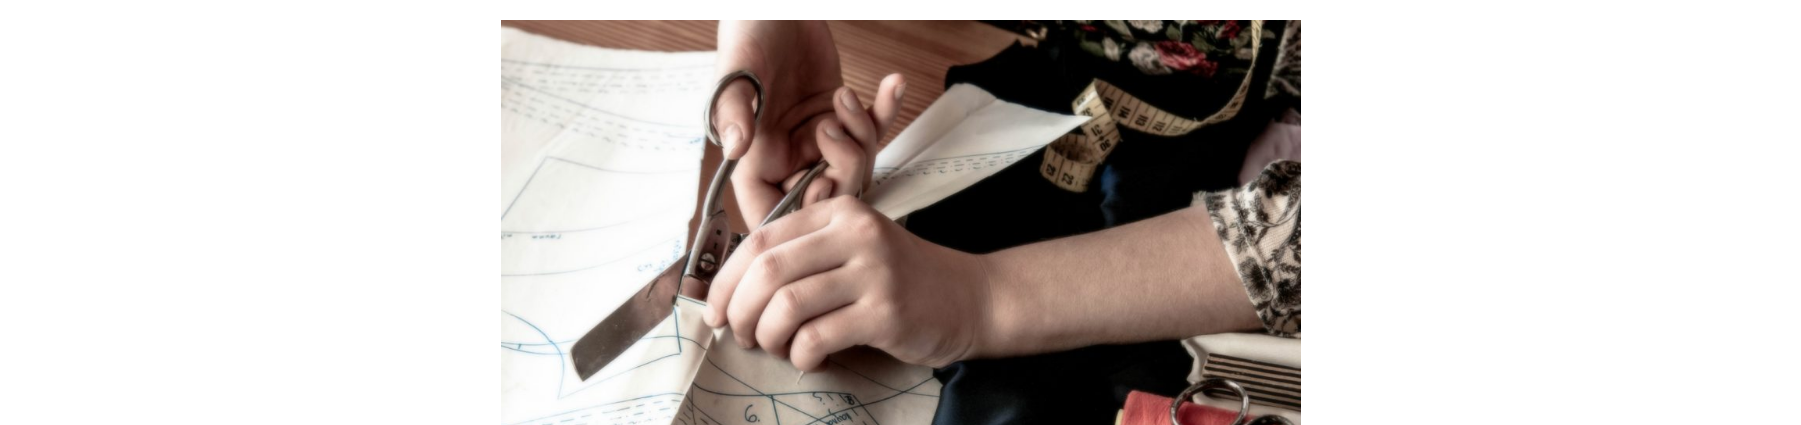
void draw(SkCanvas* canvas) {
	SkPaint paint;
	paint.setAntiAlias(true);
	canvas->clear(0xffffffff);
	canvas->drawImageRect(SkImages::DeferredFromEncodedData(SkData::MakeFromFileName("img1.png")), SkRect::MakeXYWH(501, 20, 800, 405), SkSamplingOptions());
}
